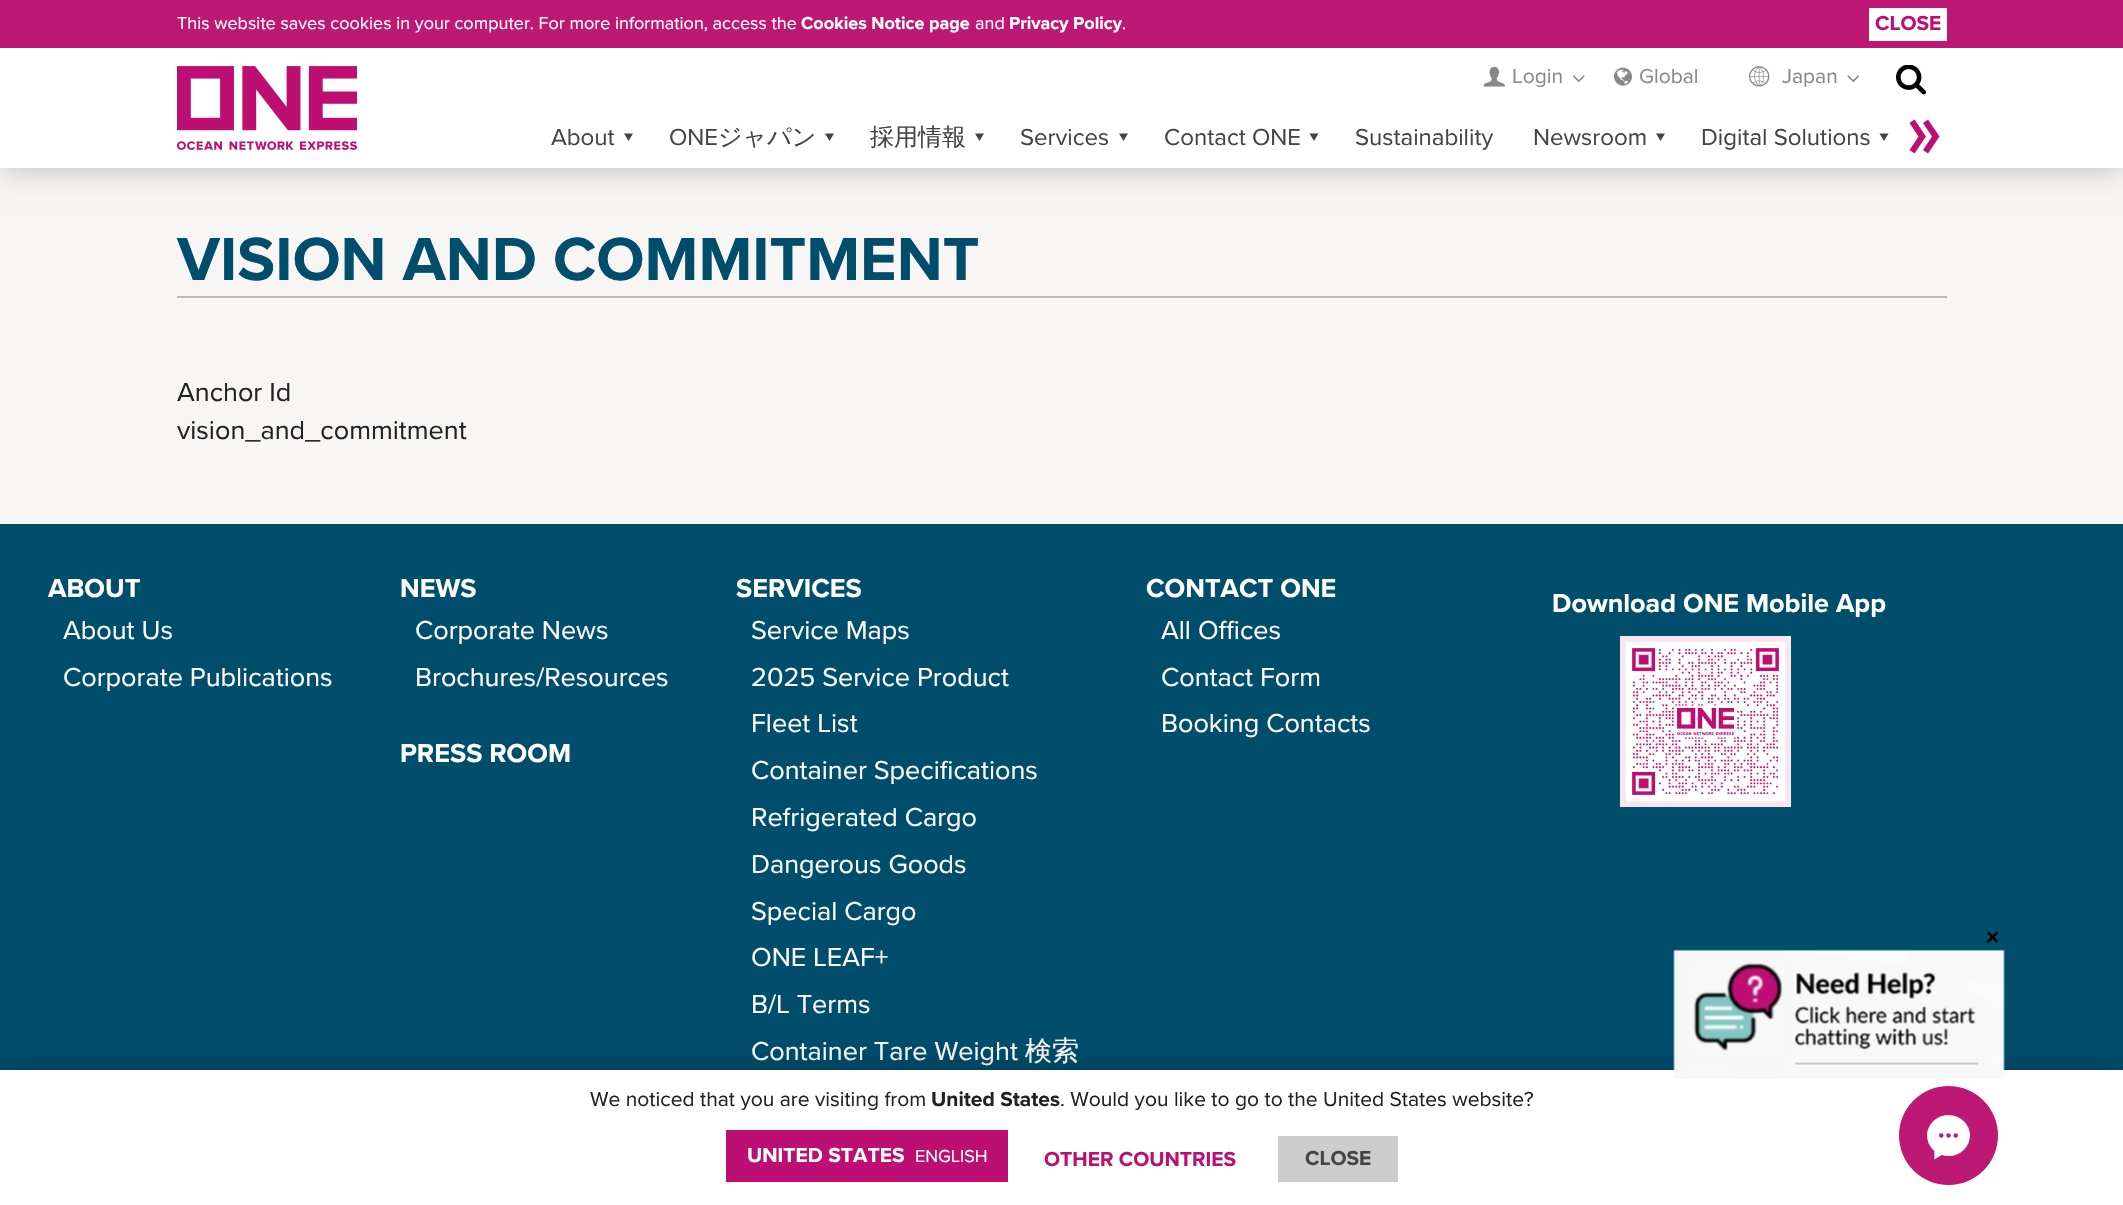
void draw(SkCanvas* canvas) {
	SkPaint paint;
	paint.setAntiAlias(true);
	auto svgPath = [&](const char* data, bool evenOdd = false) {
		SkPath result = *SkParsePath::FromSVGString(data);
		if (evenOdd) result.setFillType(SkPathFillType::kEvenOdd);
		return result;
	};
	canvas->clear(0xfff8f6f4);
	paint.setColor(0x40000000);
	paint.setMaskFilter(SkMaskFilter::MakeBlur(kNormal_SkBlurStyle, 15));
	canvas->drawRect(SkRect::MakeXYWH(0, 48, 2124, 120), paint);
	paint.setMaskFilter(nullptr);
	paint.setColor(0xffffffff);
	canvas->drawRect(SkRect::MakeXYWH(0, 48, 2123, 120), paint);
	paint.setColor(0xffbd1874);
	canvas->drawRect(SkRect::MakeXYWH(0, 0, 2123, 48), paint);
	SkFont f1(fontMgr->matchFamilyStyle("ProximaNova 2", SkFontStyle::Normal()), 18);
	f1.setSubpixel(true);
	paint.setColor(0xffffffff);
	canvas->drawString("This website saves cookies in your computer. For more information, access the", 177, 29, f1, paint);
	SkFont f2(fontMgr->matchFamilyStyle("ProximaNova", SkFontStyle::Normal()), 18);
	f2.setSubpixel(true);
	canvas->drawString("Cookies Notice page", 801, 29, f2, paint);
	canvas->drawString("and", 975, 29, f1, paint);
	canvas->drawString("Privacy Policy", 1009, 29, f2, paint);
	canvas->drawString(".", 1122, 29, f1, paint);
	canvas->drawRect(SkRect::MakeXYWH(1869, 8, 78, 33), paint);
	SkFont f3(fontMgr->matchFamilyStyle("ProximaNova", SkFontStyle::Normal()), 21);
	f3.setSubpixel(true);
	paint.setColor(0xffbd0f72);
	canvas->drawString("CLOSE", 1875, 30, f3, paint);
	canvas->drawImageRect(SkImages::DeferredFromEncodedData(SkData::MakeFromFileName("img1.png")), SkRect::MakeXYWH(177, 66, 180, 84), SkSamplingOptions());
	canvas->drawImageRect(SkImages::DeferredFromEncodedData(SkData::MakeFromFileName("img2.png")), SkRect::MakeXYWH(1483, 66, 22, 21), SkSamplingOptions());
	SkFont f4(fontMgr->matchFamilyStyle("ProximaNova 2", SkFontStyle::Normal()), 21);
	f4.setSubpixel(true);
	paint.setColor(0xff888888);
	canvas->drawString("Login", 1512, 83, f4, paint);
	canvas->drawImageRect(SkImages::DeferredFromEncodedData(SkData::MakeFromFileName("img3.png")), SkRect::MakeXYWH(1573, 75, 12, 8), SkSamplingOptions());
	canvas->drawImageRect(SkImages::DeferredFromEncodedData(SkData::MakeFromFileName("img4.png")), SkRect::MakeXYWH(1614, 67, 18, 19), SkSamplingOptions());
	canvas->drawString("Global", 1639, 83, f4, paint);
	canvas->drawImageRect(SkImages::DeferredFromEncodedData(SkData::MakeFromFileName("img5.png")), SkRect::MakeXYWH(1749, 66, 21, 21), SkSamplingOptions());
	canvas->drawString("Japan", 1782, 83, f4, paint);
	canvas->drawImageRect(SkImages::DeferredFromEncodedData(SkData::MakeFromFileName("img6.png")), SkRect::MakeXYWH(1847, 75, 12, 8), SkSamplingOptions());
	canvas->drawImageRect(SkImages::DeferredFromEncodedData(SkData::MakeFromFileName("img7.png")), SkRect::MakeXYWH(1896, 65, 30, 30), SkSamplingOptions());
	SkFont f5(fontMgr->matchFamilyStyle("ProximaNova 2", SkFontStyle::Normal()), 24);
	f5.setSubpixel(true);
	paint.setColor(0xff444444);
	canvas->drawString("About", 551, 145, f5, paint);
	canvas->drawPath(svgPath("M624 133.5H633L628.5 141Z"), paint);
	canvas->drawString("ONE", 669, 145, f5, paint);
	SkFont f6(fontMgr->matchFamilyStyle("WenQuanYi Zen Hei", SkFontStyle(500, SkFontStyle::kNormal_Width, SkFontStyle::kUpright_Slant)), 24);
	f6.setSubpixel(true);
	canvas->drawString("ジャパン", 718, 145, f6, paint);
	canvas->drawPath(svgPath("M825 133.5H834L829.5 141Z"), paint);
	canvas->drawString("採用情報", 870, 145, f6, paint);
	canvas->drawPath(svgPath("M975 133.5H984L979.5 141Z"), paint);
	canvas->drawString("Services", 1020, 145, f5, paint);
	canvas->drawPath(svgPath("M1119 133.5H1128L1123.5 141Z"), paint);
	canvas->drawString("Contact ONE", 1164, 145, f5, paint);
	canvas->drawPath(svgPath("M1309.5 133.5H1318.5L1314 141Z"), paint);
	canvas->drawString("Sustainability", 1355, 145, f5, paint);
	canvas->drawString("Newsroom", 1533, 145, f5, paint);
	canvas->drawPath(svgPath("M1656 133.5H1665L1660.5 141Z"), paint);
	canvas->drawString("Digital Solutions", 1701, 145, f5, paint);
	canvas->drawPath(svgPath("M1879.5 133.5H1888.5L1884 141Z"), paint);
	paint.setColor(0xffbd0f72);
	canvas->drawPath(svgPath("M1914.5 119.5L1909.5 123L1918.5 136.5L1909.5 150L1914.5 153.5L1926 136.5ZM1928 119.5L1923 123L1932 136.5L1923 150L1928 153.5L1939.5 136.5Z"), paint);
	paint.setColor(0xffbab9b7);
	canvas->drawRect(SkRect::MakeXYWH(177, 296, 1770, 2), paint);
	SkFont f7(fontMgr->matchFamilyStyle("ProximaNova", SkFontStyle::Normal()), 63);
	f7.setSubpixel(true);
	paint.setColor(0xff004d6c);
	canvas->drawString("VISION AND COMMITMENT", 177, 280, f7, paint);
	SkFont f8(fontMgr->matchFamilyStyle("ProximaNova 2", SkFontStyle::Normal()), 27);
	f8.setSubpixel(true);
	paint.setColor(0xff222222);
	canvas->drawString("Anchor Id", 177, 401, f8, paint);
	canvas->drawString("vision_and_commitment", 177, 439, f8, paint);
	paint.setColor(0xff004d6c);
	canvas->drawRect(SkRect::MakeXYWH(0, 524, 2123, 546), paint);
	SkFont f9(fontMgr->matchFamilyStyle("ProximaNova", SkFontStyle::Normal()), 27);
	f9.setSubpixel(true);
	paint.setColor(0xffffffff);
	canvas->drawString("ABOUT", 48, 597, f9, paint);
	canvas->drawString("About Us", 63, 639, f8, paint);
	canvas->drawString("Corporate Publications", 63, 686, f8, paint);
	canvas->drawString("NEWS", 400, 597, f9, paint);
	canvas->drawString("Corporate News", 415, 639, f8, paint);
	canvas->drawString("Brochures/Resources", 415, 686, f8, paint);
	canvas->drawString("PRESS ROOM", 400, 762, f9, paint);
	canvas->drawString("SERVICES", 736, 597, f9, paint);
	canvas->drawString("Service Maps", 751, 639, f8, paint);
	canvas->drawString("2025 Service Product", 751, 686, f8, paint);
	canvas->drawString("Fleet List", 751, 732, f8, paint);
	canvas->drawString("Container Specifications", 751, 779, f8, paint);
	canvas->drawString("Refrigerated Cargo", 751, 826, f8, paint);
	canvas->drawString("Dangerous Goods", 751, 873, f8, paint);
	canvas->drawString("Special Cargo", 751, 920, f8, paint);
	canvas->drawString("ONE LEAF+", 751, 966, f8, paint);
	canvas->drawString("B/L Terms", 751, 1013, f8, paint);
	canvas->drawString("Container Tare Weight", 751, 1060, f8, paint);
	SkFont f10(fontMgr->matchFamilyStyle("WenQuanYi Zen Hei", SkFontStyle(500, SkFontStyle::kNormal_Width, SkFontStyle::kUpright_Slant)), 27);
	f10.setSubpixel(true);
	canvas->drawString("検索", 1025, 1060, f10, paint);
	canvas->drawString("CONTACT ONE", 1146, 597, f9, paint);
	canvas->drawString("All Offices", 1161, 639, f8, paint);
	canvas->drawString("Contact Form", 1161, 686, f8, paint);
	canvas->drawString("Booking Contacts", 1161, 732, f8, paint);
	canvas->drawString("Download ONE Mobile App", 1552, 612, f9, paint);
	canvas->drawImageRect(SkImages::DeferredFromEncodedData(SkData::MakeFromFileName("img8.png")), SkRect::MakeXYWH(1620, 636, 171, 171), SkSamplingOptions());
	SkFont f11(fontMgr->matchFamilyStyle("ProximaNova", SkFontStyle::Normal()), 30);
	f11.setSubpixel(true);
	paint.setColor(0xff000000);
	canvas->save();
	canvas->rotate(45, 1980, 939);
	canvas->drawString("+", 1980, 939, f11, paint);
	canvas->restore();
	paint.setColor(0x40000000);
	paint.setMaskFilter(SkMaskFilter::MakeBlur(kNormal_SkBlurStyle, 15));
	canvas->drawRect(SkRect::MakeXYWH(0, 1070, 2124, 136), paint);
	paint.setMaskFilter(nullptr);
	paint.setColor(0xffffffff);
	canvas->drawRect(SkRect::MakeXYWH(0, 1070, 2123, 135), paint);
	canvas->drawImageRect(SkImages::DeferredFromEncodedData(SkData::MakeFromFileName("img9.png")), SkRect::MakeXYWH(1673, 949, 332, 130), SkSamplingOptions());
	paint.setColor(0xffbd1874);
	canvas->drawCircle(1948.5, 1135.5, 49.5, paint);
	paint.setColor(0xffffffff);
	canvas->drawOval(SkRect::MakeXYWH(1927, 1115, 43, 41), paint);
	canvas->drawPath(svgPath("M1935.5 1157.5V1148L1944.5 1152Z"), paint);
	paint.setStroke(true);
	paint.setStrokeWidth(2.2);
	canvas->drawPath(svgPath("M1935.5 1157.5V1148L1944.5 1152Z"), paint);
	paint.setStroke(false);
	paint.setColor(0xffbd1874);
	canvas->drawCircle(1941.3, 1135.5, 2.2, paint);
	canvas->drawCircle(1948.5, 1135.5, 2.2, paint);
	canvas->drawCircle(1955.7, 1135.5, 2.2, paint);
	paint.setColor(0xff222222);
	canvas->drawString("We noticed that you are visiting from", 590, 1106, f4, paint);
	canvas->drawString("United States", 931, 1106, f3, paint);
	canvas->drawString(". Would you like to go to the United States website?", 1060, 1106, f4, paint);
	paint.setColor(0xffbd0f72);
	canvas->drawRect(SkRect::MakeXYWH(726, 1130, 282, 52), paint);
	paint.setColor(0xffffffff);
	canvas->drawString("UNITED STATES", 747, 1162, f3, paint);
	canvas->drawString("ENGLISH", 915, 1162, f1, paint);
	paint.setColor(0xffbd0f72);
	canvas->drawString("OTHER COUNTRIES", 1044, 1166, f3, paint);
	paint.setColor(0xffcccccc);
	canvas->drawRect(SkRect::MakeXYWH(1278, 1136, 120, 46), paint);
	paint.setColor(0xff444444);
	canvas->drawString("CLOSE", 1305, 1165, f3, paint);
}
